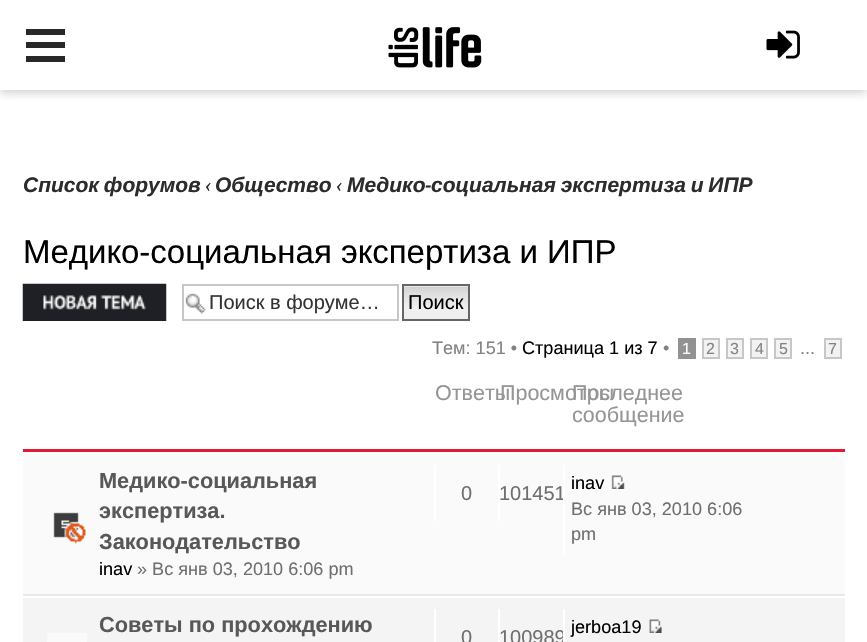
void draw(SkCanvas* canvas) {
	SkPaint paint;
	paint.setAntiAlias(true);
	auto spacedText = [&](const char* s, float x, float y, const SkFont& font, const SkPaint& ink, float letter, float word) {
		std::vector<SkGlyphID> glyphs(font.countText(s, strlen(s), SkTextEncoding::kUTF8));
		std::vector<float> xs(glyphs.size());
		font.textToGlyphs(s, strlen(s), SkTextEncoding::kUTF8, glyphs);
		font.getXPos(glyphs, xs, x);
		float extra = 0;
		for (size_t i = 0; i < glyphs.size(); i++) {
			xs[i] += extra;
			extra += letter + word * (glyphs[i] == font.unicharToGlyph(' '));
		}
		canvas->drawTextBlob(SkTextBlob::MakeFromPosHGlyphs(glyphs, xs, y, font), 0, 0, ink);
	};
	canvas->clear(0xffffffff);
	canvas->save();
	canvas->clipRect(SkRect::MakeXYWH(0, 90, 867, 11));
	paint.setColor(0x809f9f9f);
	paint.setMaskFilter(SkMaskFilter::MakeBlur(kNormal_SkBlurStyle, 4.5));
	canvas->drawRect(SkRect::MakeXYWH(0, 3, 867, 90), paint);
	paint.setMaskFilter(nullptr);
	canvas->restore();
	paint.setColor(0xff282828);
	canvas->drawRect(SkRect::MakeXYWH(26, 29, 39, 6), paint);
	canvas->drawRect(SkRect::MakeXYWH(26, 42, 39, 6), paint);
	canvas->drawRect(SkRect::MakeXYWH(26, 56, 39, 6), paint);
	canvas->drawImageRect(SkImages::DeferredFromEncodedData(SkData::MakeFromFileName("img1.png")), SkRect::MakeXYWH(388, 27, 94, 41), SkSamplingOptions());
	canvas->drawImageRect(SkImages::DeferredFromEncodedData(SkData::MakeFromFileName("img2.png")), SkRect::MakeXYWH(766, 30, 34, 29), SkSamplingOptions());
	SkFont f1(fontMgr->matchFamilyStyle("Liberation Sans", SkFontStyle::BoldItalic()), 21);
	f1.setSubpixel(true);
	paint.setColor(0xff2c2c2c);
	spacedText("Список форумов", 23, 192, f1, paint, 0, -1);
	SkFont f2(fontMgr->matchFamilyStyle("Caladea", SkFontStyle::Italic()), 21);
	f2.setSubpixel(true);
	canvas->drawString("‹", 205, 192, f2, paint);
	canvas->drawString("Общество", 215, 192, f1, paint);
	canvas->drawString("‹", 336, 192, f2, paint);
	canvas->drawString("Медико", 347, 192, f1, paint);
	SkFont f3(fontMgr->matchFamilyStyle("Caladea", SkFontStyle::BoldItalic()), 21);
	f3.setSubpixel(true);
	canvas->drawString("-", 425, 192, f3, paint);
	spacedText("социальная экспертиза и ИПР", 431, 192, f1, paint, 0, -1);
	SkFont f4(fontMgr->matchFamilyStyle("Liberation Sans", SkFontStyle::Normal()), 33);
	f4.setSubpixel(true);
	paint.setColor(0xff000000);
	canvas->drawString("Медико-социальная экспертиза и ИПР", 23, 263, f4, paint);
	canvas->drawImageRect(SkImages::DeferredFromEncodedData(SkData::MakeFromFileName("img3.png")), SkRect::MakeXYWH(22, 283, 145, 38), SkSamplingOptions());
	canvas->drawImageRect(SkImages::DeferredFromEncodedData(SkData::MakeFromFileName("img4.png")), SkRect::MakeXYWH(185, 293, 21, 21), SkSamplingOptions());
	paint.setStroke(true);
	paint.setStrokeWidth(2);
	paint.setColor(0xffc7c7c7);
	canvas->drawRect(SkRect::MakeXYWH(183, 285, 215, 35), paint);
	SkFont f5(fontMgr->matchFamilyStyle("Liberation Sans", SkFontStyle::Normal()), 20);
	f5.setSubpixel(true);
	paint.setStroke(false);
	paint.setColor(0xff333333);
	canvas->drawString("Поиск в форуме…", 209, 309, f5, paint);
	canvas->drawImageRect(SkImages::DeferredFromEncodedData(SkData::MakeFromFileName("img5.png")), SkRect::MakeXYWH(404, 286, 64, 33), SkSamplingOptions());
	paint.setStroke(true);
	paint.setColor(0xff666666);
	canvas->drawRect(SkRect::MakeXYWH(403, 285, 66, 35), paint);
	paint.setStroke(false);
	paint.setColor(0xff000000);
	canvas->drawString("Поиск", 408, 309, f5, paint);
	SkFont f6(fontMgr->matchFamilyStyle("Liberation Sans", SkFontStyle::Normal()), 18.1);
	f6.setSubpixel(true);
	paint.setColor(0xff828282);
	canvas->drawString("Тем: 151 •", 432, 354, f6, paint);
	paint.setColor(0xff000000);
	canvas->drawString("Страница 1 из 7", 522, 354, f6, paint);
	paint.setColor(0xff828282);
	canvas->drawString("•", 663, 354, f6, paint);
	paint.setColor(0xff929292);
	canvas->drawRect(SkRect::MakeXYWH(678, 338, 18, 21), paint);
	SkFont f7(fontMgr->matchFamilyStyle("Liberation Sans", SkFontStyle::Normal()), 16);
	f7.setSubpixel(true);
	paint.setColor(0xffffffff);
	canvas->drawString("1", 682, 354, f7, paint);
	paint.setColor(0xfff2f2f2);
	canvas->drawRect(SkRect::MakeXYWH(703, 339, 16, 19), paint);
	paint.setStroke(true);
	paint.setColor(0xffc7c7c7);
	canvas->drawRect(SkRect::MakeXYWH(703, 339, 16, 19), paint);
	paint.setStroke(false);
	paint.setColor(0xff828282);
	canvas->drawString("2", 706, 354, f7, paint);
	paint.setColor(0xfff2f2f2);
	canvas->drawRect(SkRect::MakeXYWH(727, 339, 16, 19), paint);
	paint.setStroke(true);
	paint.setColor(0xffc7c7c7);
	canvas->drawRect(SkRect::MakeXYWH(727, 339, 16, 19), paint);
	paint.setStroke(false);
	paint.setColor(0xff828282);
	canvas->drawString("3", 730, 354, f7, paint);
	paint.setColor(0xfff2f2f2);
	canvas->drawRect(SkRect::MakeXYWH(751, 339, 16, 19), paint);
	paint.setStroke(true);
	paint.setColor(0xffc7c7c7);
	canvas->drawRect(SkRect::MakeXYWH(751, 339, 16, 19), paint);
	paint.setStroke(false);
	paint.setColor(0xff828282);
	canvas->drawString("4", 755, 354, f7, paint);
	paint.setColor(0xfff2f2f2);
	canvas->drawRect(SkRect::MakeXYWH(775, 339, 16, 19), paint);
	paint.setStroke(true);
	paint.setColor(0xffc7c7c7);
	canvas->drawRect(SkRect::MakeXYWH(775, 339, 16, 19), paint);
	paint.setStroke(false);
	paint.setColor(0xff828282);
	canvas->drawString("5", 779, 354, f7, paint);
	paint.setColor(0xfff2f2f2);
	canvas->drawRect(SkRect::MakeXYWH(825, 339, 16, 19), paint);
	paint.setStroke(true);
	paint.setColor(0xffc7c7c7);
	canvas->drawRect(SkRect::MakeXYWH(825, 339, 16, 19), paint);
	paint.setStroke(false);
	paint.setColor(0xff828282);
	canvas->drawString("7", 828, 354, f7, paint);
	canvas->drawString("...", 800, 354, f6, paint);
	paint.setColor(0xffe21b33);
	canvas->drawRect(SkRect::MakeXYWH(23, 449, 822, 3), paint);
	SkFont f8(fontMgr->matchFamilyStyle("Liberation Sans", SkFontStyle::Normal()), 21.5);
	f8.setSubpixel(true);
	paint.setColor(0xff959595);
	canvas->drawString("Ответы", 435, 400, f8, paint);
	canvas->drawString("Просмотры", 500, 400, f8, paint);
	canvas->drawString("Последнее", 572, 400, f8, paint);
	canvas->drawString("сообщение", 572, 422, f8, paint);
	paint.setColor(0xfff9faf9);
	canvas->drawRect(SkRect::MakeXYWH(23, 454, 822, 140), paint);
	paint.setColor(0xffe9e9e9);
	canvas->drawRect(SkRect::MakeXYWH(23, 594, 822, 2), paint);
	canvas->drawImageRect(SkImages::DeferredFromEncodedData(SkData::MakeFromFileName("img6.png")), SkRect::MakeXYWH(53, 512, 33, 32), SkSamplingOptions());
	SkFont f9(fontMgr->matchFamilyStyle("Liberation Sans", SkFontStyle::Bold()), 21.75);
	f9.setSubpixel(true);
	paint.setColor(0xff585858);
	canvas->drawString("Медико-социальная", 99, 488, f9, paint);
	canvas->drawString("экспертиза.", 99, 518, f9, paint);
	canvas->drawString("Законодательство", 99, 549, f9, paint);
	paint.setColor(0xff000000);
	canvas->drawString("inav", 99, 575, f6, paint);
	paint.setColor(0xff6f6f6f);
	canvas->drawString("» Вс янв 03, 2010 6:06 pm", 137, 575, f6, paint);
	paint.setColor(0xffffffff);
	canvas->drawRect(SkRect::MakeXYWH(434, 465, 2, 56), paint);
	paint.setColor(0xff6f6f6f);
	canvas->drawString("0", 461, 500, f5, paint);
	paint.setColor(0xffffffff);
	canvas->drawRect(SkRect::MakeXYWH(498, 465, 2, 56), paint);
	paint.setColor(0xff6f6f6f);
	canvas->drawString("101451", 499, 500, f5, paint);
	paint.setColor(0xffffffff);
	canvas->drawRect(SkRect::MakeXYWH(563, 465, 2, 89), paint);
	paint.setColor(0xff000000);
	canvas->drawString("inav", 571, 489, f6, paint);
	canvas->drawImageRect(SkImages::DeferredFromEncodedData(SkData::MakeFromFileName("img7.png")), SkRect::MakeXYWH(611, 475, 14, 14), SkSamplingOptions());
	paint.setColor(0xff6f6f6f);
	canvas->drawString("Вс янв 03, 2010 6:06", 571, 515, f6, paint);
	canvas->drawString("pm", 571, 540, f6, paint);
	paint.setColor(0xfff4f4f4);
	canvas->drawRect(SkRect::MakeXYWH(23, 598, 822, 44), paint);
	paint.setColor(0xfff9faf9);
	canvas->drawRect(SkRect::MakeXYWH(47, 633, 40, 9), paint);
	paint.setColor(0xff585858);
	canvas->drawString("Советы по прохождению", 99, 632, f9, paint);
	paint.setColor(0xffffffff);
	canvas->drawRect(SkRect::MakeXYWH(434, 609, 2, 33), paint);
	paint.setColor(0xff6f6f6f);
	canvas->drawString("0", 461, 644, f5, paint);
	paint.setColor(0xffffffff);
	canvas->drawRect(SkRect::MakeXYWH(498, 609, 2, 33), paint);
	paint.setColor(0xff6f6f6f);
	canvas->drawString("100989", 499, 644, f5, paint);
	paint.setColor(0xffffffff);
	canvas->drawRect(SkRect::MakeXYWH(563, 609, 2, 33), paint);
	paint.setColor(0xff000000);
	canvas->drawString("jerboa19", 571, 633, f6, paint);
	canvas->drawImageRect(SkImages::DeferredFromEncodedData(SkData::MakeFromFileName("img8.png")), SkRect::MakeXYWH(649, 619, 13, 14), SkSamplingOptions());
}
